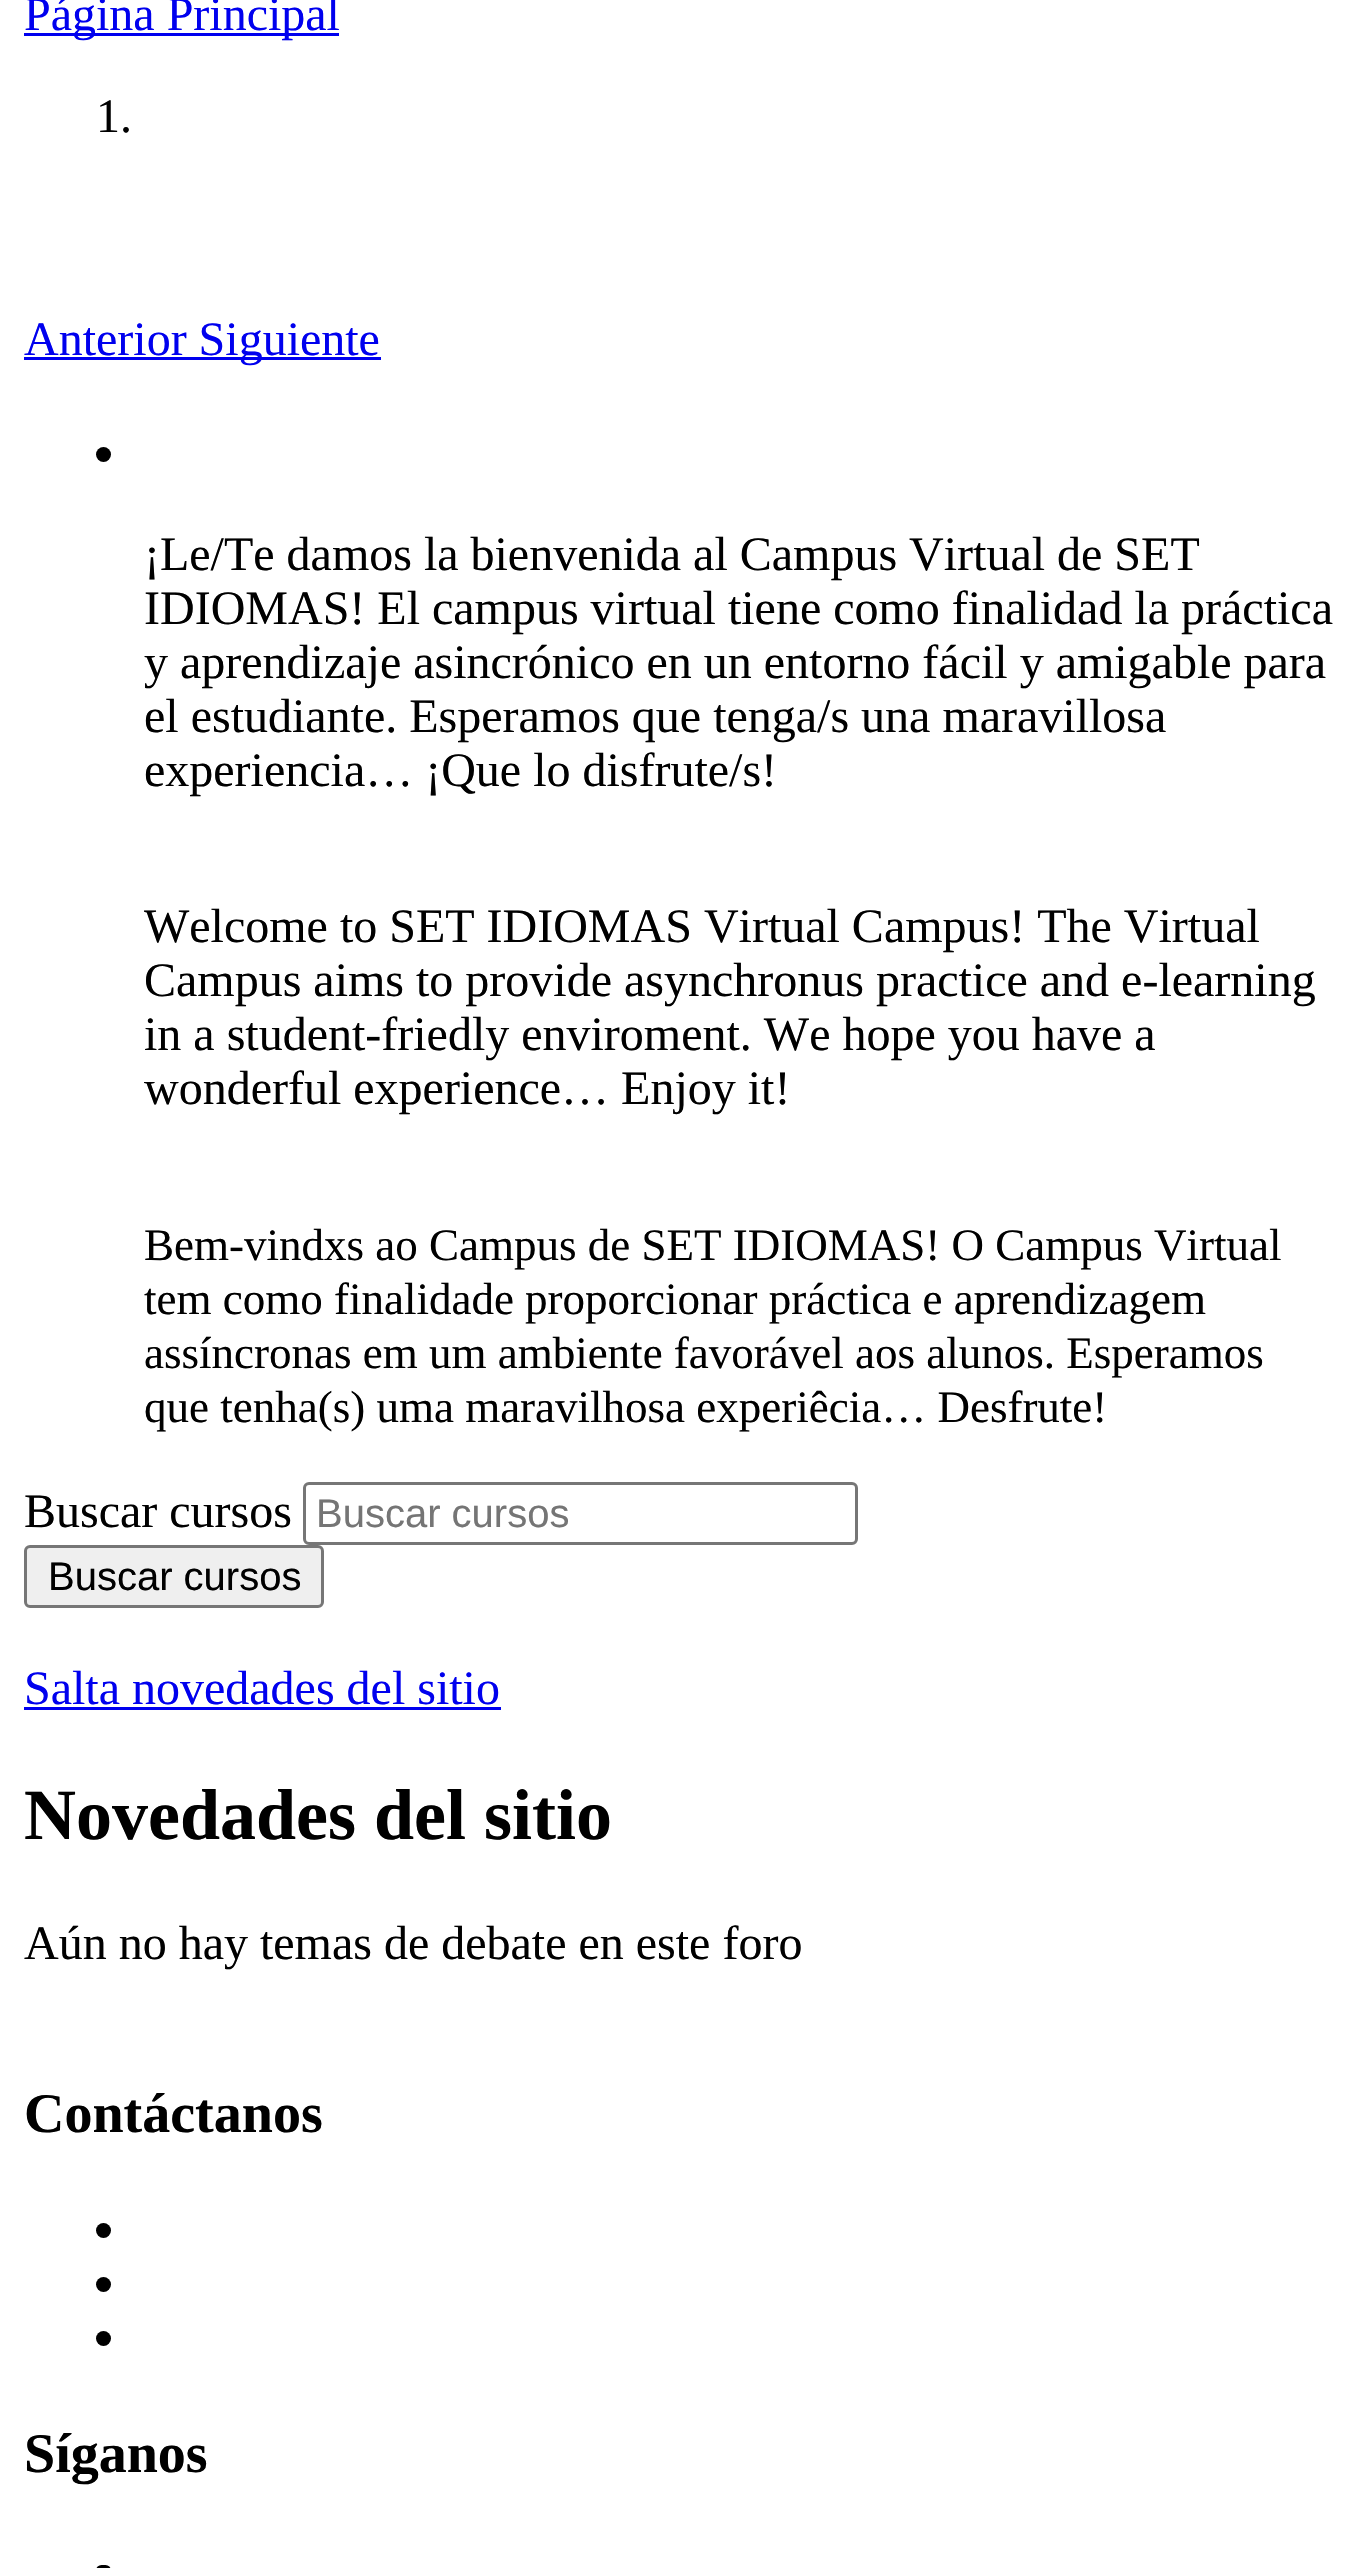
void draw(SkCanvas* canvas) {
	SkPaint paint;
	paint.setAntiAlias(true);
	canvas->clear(0xffffffff);
	paint.setColor(0xff0000ee);
	canvas->drawRect(SkRect::MakeXYWH(24, 33, 315, 3), paint);
	SkFont f1(fontMgr->matchFamilyStyle("Liberation Serif", SkFontStyle::Normal()), 48);
	f1.setSubpixel(true);
	canvas->drawString("Página Principal", 24, 30, f1, paint);
	paint.setColor(0xff000000);
	canvas->drawString("1.", 96, 132, f1, paint);
	paint.setColor(0xff0000ee);
	canvas->drawRect(SkRect::MakeXYWH(24, 357, 357, 3), paint);
	canvas->drawString("Anterior Siguiente", 24, 355, f1, paint);
	paint.setColor(0xff000000);
	canvas->drawCircle(103.5, 454.5, 7.5, paint);
	canvas->drawString("¡Le/Te damos la bienvenida al Campus Virtual de SET", 144, 570, f1, paint);
	canvas->drawString("IDIOMAS! El campus virtual tiene como finalidad la práctica", 144, 624, f1, paint);
	canvas->drawString("y aprendizaje asincrónico en un entorno fácil y amigable para", 144, 678, f1, paint);
	canvas->drawString("el estudiante. Esperamos que tenga/s una maravillosa", 144, 732, f1, paint);
	canvas->drawString("experiencia… ¡Que lo disfrute/s!", 144, 786, f1, paint);
	canvas->drawString("Welcome to SET IDIOMAS Virtual Campus! The Virtual", 144, 942, f1, paint);
	canvas->drawString("Campus aims to provide asynchronus practice and e-learning", 144, 996, f1, paint);
	canvas->drawString("in a student-friedly enviroment. We hope you have a", 144, 1050, f1, paint);
	canvas->drawString("wonderful experience… Enjoy it!", 144, 1104, f1, paint);
	SkFont f2(fontMgr->matchFamilyStyle("Liberation Serif", SkFontStyle::Normal()), 45);
	f2.setSubpixel(true);
	canvas->drawString("Bem-vindxs ao Campus de SET IDIOMAS! O Campus Virtual", 144, 1260, f2, paint);
	canvas->drawString("tem como finalidade proporcionar práctica e aprendizagem", 144, 1314, f2, paint);
	canvas->drawString("assíncronas em um ambiente favorável aos alunos. Esperamos", 144, 1368, f2, paint);
	canvas->drawString("que tenha(s) uma maravilhosa experiêcia… Desfrute!", 144, 1422, f2, paint);
	canvas->drawString("Buscar cursos", 24, 1527, f1, paint);
	paint.setStroke(true);
	paint.setStrokeWidth(3);
	paint.setColor(0xff767676);
	canvas->drawRoundRect(SkRect::MakeXYWH(304.5, 1483.5, 552, 60), 4.5, 4.5, paint);
	SkFont f3(fontMgr->matchFamilyStyle("Liberation Sans", SkFontStyle::Normal()), 40);
	f3.setSubpixel(true);
	paint.setStroke(false);
	paint.setColor(0xff757575);
	canvas->drawString("Buscar cursos", 316, 1527, f3, paint);
	paint.setColor(0xffefefef);
	canvas->drawRoundRect(SkRect::MakeXYWH(25.5, 1546.5, 297, 60), 4.5, 4.5, paint);
	paint.setStroke(true);
	paint.setColor(0xff767676);
	canvas->drawRoundRect(SkRect::MakeXYWH(25.5, 1546.5, 297, 60), 4.5, 4.5, paint);
	paint.setStroke(false);
	paint.setColor(0xff000000);
	canvas->drawString("Buscar cursos", 48, 1590, f3, paint);
	paint.setColor(0xff0000ee);
	canvas->drawString("Salta novedades del sitio", 24, 1704, f1, paint);
	canvas->drawRect(SkRect::MakeXYWH(24, 1707, 477, 3), paint);
	SkFont f4(fontMgr->matchFamilyStyle("Liberation Serif", SkFontStyle::Bold()), 72);
	f4.setSubpixel(true);
	paint.setColor(0xff000000);
	canvas->drawString("Novedades del sitio", 24, 1839, f4, paint);
	canvas->drawString("Aún no hay temas de debate en este foro", 24, 1959, f1, paint);
	SkFont f5(fontMgr->matchFamilyStyle("Liberation Serif", SkFontStyle::Bold()), 56);
	f5.setSubpixel(true);
	canvas->drawString("Contáctanos", 24, 2132, f5, paint);
	canvas->drawCircle(103.5, 2230.5, 7.5, paint);
	canvas->drawCircle(103.5, 2284.5, 7.5, paint);
	canvas->drawCircle(103.5, 2338.5, 7.5, paint);
	canvas->drawString("Síganos", 24, 2472, f5, paint);
	canvas->drawRoundRect(SkRect::MakeXYWH(96, 2565, 15, 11), 7.5, 7.5, paint);
}
